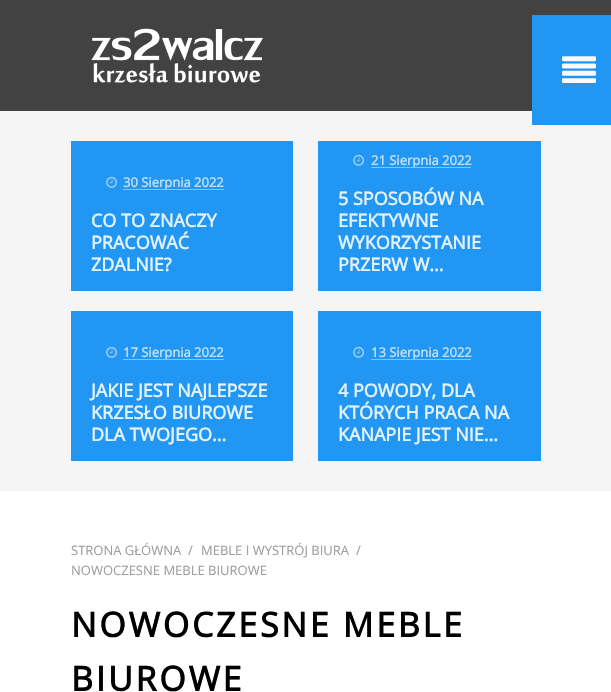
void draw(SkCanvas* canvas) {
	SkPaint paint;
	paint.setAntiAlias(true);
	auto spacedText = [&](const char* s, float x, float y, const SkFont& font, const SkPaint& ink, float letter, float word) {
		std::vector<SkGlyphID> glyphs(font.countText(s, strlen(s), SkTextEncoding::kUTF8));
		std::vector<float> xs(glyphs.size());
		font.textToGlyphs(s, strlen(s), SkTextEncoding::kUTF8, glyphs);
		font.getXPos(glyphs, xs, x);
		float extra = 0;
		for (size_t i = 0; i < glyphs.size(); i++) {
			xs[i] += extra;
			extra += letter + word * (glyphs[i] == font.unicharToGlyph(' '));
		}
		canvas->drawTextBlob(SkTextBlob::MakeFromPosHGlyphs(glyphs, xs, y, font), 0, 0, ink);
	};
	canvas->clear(0xffffffff);
	paint.setColor(0xff424242);
	canvas->drawRect(SkRect::MakeXYWH(0, 0, 611, 111), paint);
	canvas->drawImageRect(SkImages::DeferredFromEncodedData(SkData::MakeFromFileName("img1.png")), SkRect::MakeXYWH(91, 28, 172, 55), SkSamplingOptions());
	paint.setColor(0xfff5f5f5);
	canvas->drawRect(SkRect::MakeXYWH(0, 111, 611, 380), paint);
	paint.setColor(0xff2196f3);
	canvas->drawRect(SkRect::MakeXYWH(532, 15, 79, 110), paint);
	canvas->drawImageRect(SkImages::DeferredFromEncodedData(SkData::MakeFromFileName("img2.png")), SkRect::MakeXYWH(562, 56, 34, 27), SkSamplingOptions());
	canvas->drawRect(SkRect::MakeXYWH(71, 141, 222, 150), paint);
	canvas->drawImageRect(SkImages::DeferredFromEncodedData(SkData::MakeFromFileName("img3.png")), SkRect::MakeXYWH(106, 176, 12, 12), SkSamplingOptions());
	SkFont f1(fontMgr->matchFamilyStyle("Open Sans", SkFontStyle::Bold()), 13);
	f1.setSubpixel(true);
	paint.setColor(0xffbbdefb);
	canvas->drawString("30 Sierpnia 2022", 123, 187, f1, paint);
	paint.setColor(0xff82c3f9);
	canvas->drawRect(SkRect::MakeXYWH(123, 189, 101, 1), paint);
	SkFont f2(fontMgr->matchFamilyStyle("Open Sans", SkFontStyle::Bold()), 18);
	f2.setSubpixel(true);
	paint.setColor(0xffe3f2fd);
	canvas->drawString("CO TO ZNACZY", 91, 227, f2, paint);
	canvas->drawString("PRACOWAĆ", 91, 249, f2, paint);
	canvas->drawString("ZDALNIE?", 91, 271, f2, paint);
	paint.setColor(0xff2196f3);
	canvas->drawRect(SkRect::MakeXYWH(318, 141, 223, 150), paint);
	canvas->drawImageRect(SkImages::DeferredFromEncodedData(SkData::MakeFromFileName("img3.png")), SkRect::MakeXYWH(353, 154, 12, 12), SkSamplingOptions());
	paint.setColor(0xffbbdefb);
	canvas->drawString("21 Sierpnia 2022", 371, 165, f1, paint);
	paint.setColor(0xff82c3f9);
	canvas->drawRect(SkRect::MakeXYWH(371, 167, 100, 1), paint);
	paint.setColor(0xffe3f2fd);
	canvas->drawString("5 SPOSOBÓW NA", 338, 205, f2, paint);
	canvas->drawString("EFEKTYWNE", 338, 227, f2, paint);
	canvas->drawString("WYKORZYSTANIE", 338, 249, f2, paint);
	canvas->drawString("PRZERW W...", 338, 271, f2, paint);
	paint.setColor(0xff2196f3);
	canvas->drawRect(SkRect::MakeXYWH(71, 311, 222, 150), paint);
	canvas->drawImageRect(SkImages::DeferredFromEncodedData(SkData::MakeFromFileName("img3.png")), SkRect::MakeXYWH(106, 346, 12, 12), SkSamplingOptions());
	paint.setColor(0xffbbdefb);
	canvas->drawString("17 Sierpnia 2022", 123, 357, f1, paint);
	paint.setColor(0xff82c3f9);
	canvas->drawRect(SkRect::MakeXYWH(123, 359, 101, 1), paint);
	paint.setColor(0xffe3f2fd);
	canvas->drawString("JAKIE JEST NAJLEPSZE", 91, 397, f2, paint);
	canvas->drawString("KRZESŁO BIUROWE", 91, 419, f2, paint);
	canvas->drawString("DLA TWOJEGO...", 91, 441, f2, paint);
	paint.setColor(0xff2196f3);
	canvas->drawRect(SkRect::MakeXYWH(318, 311, 223, 150), paint);
	canvas->drawImageRect(SkImages::DeferredFromEncodedData(SkData::MakeFromFileName("img3.png")), SkRect::MakeXYWH(353, 346, 12, 12), SkSamplingOptions());
	paint.setColor(0xffbbdefb);
	canvas->drawString("13 Sierpnia 2022", 371, 357, f1, paint);
	paint.setColor(0xff82c3f9);
	canvas->drawRect(SkRect::MakeXYWH(371, 359, 100, 1), paint);
	paint.setColor(0xffe3f2fd);
	canvas->drawString("4 POWODY, DLA", 338, 397, f2, paint);
	canvas->drawString("KTÓRYCH PRACA NA", 338, 419, f2, paint);
	canvas->drawString("KANAPIE JEST NIE...", 338, 441, f2, paint);
	SkFont f3(fontMgr->matchFamilyStyle("Open Sans", SkFontStyle::Normal()), 13);
	f3.setSubpixel(true);
	paint.setColor(0xff9e9e9e);
	canvas->drawString("STRONA GŁÓWNA", 71, 555, f3, paint);
	canvas->drawString("/", 188, 555, f3, paint);
	canvas->drawString("MEBLE I WYSTRÓJ BIURA", 201, 555, f3, paint);
	canvas->drawString("/", 356, 555, f3, paint);
	canvas->drawString("NOWOCZESNE MEBLE BIUROWE", 71, 575, f3, paint);
	SkFont f4(fontMgr->matchFamilyStyle("Open Sans", SkFontStyle::Bold()), 34);
	f4.setSubpixel(true);
	paint.setColor(0xff000000);
	spacedText("NOWOCZESNE MEBLE", 71, 637, f4, paint, 2.75, 0);
	spacedText("BIUROWE", 71, 691, f4, paint, 2.75, 0);
}
